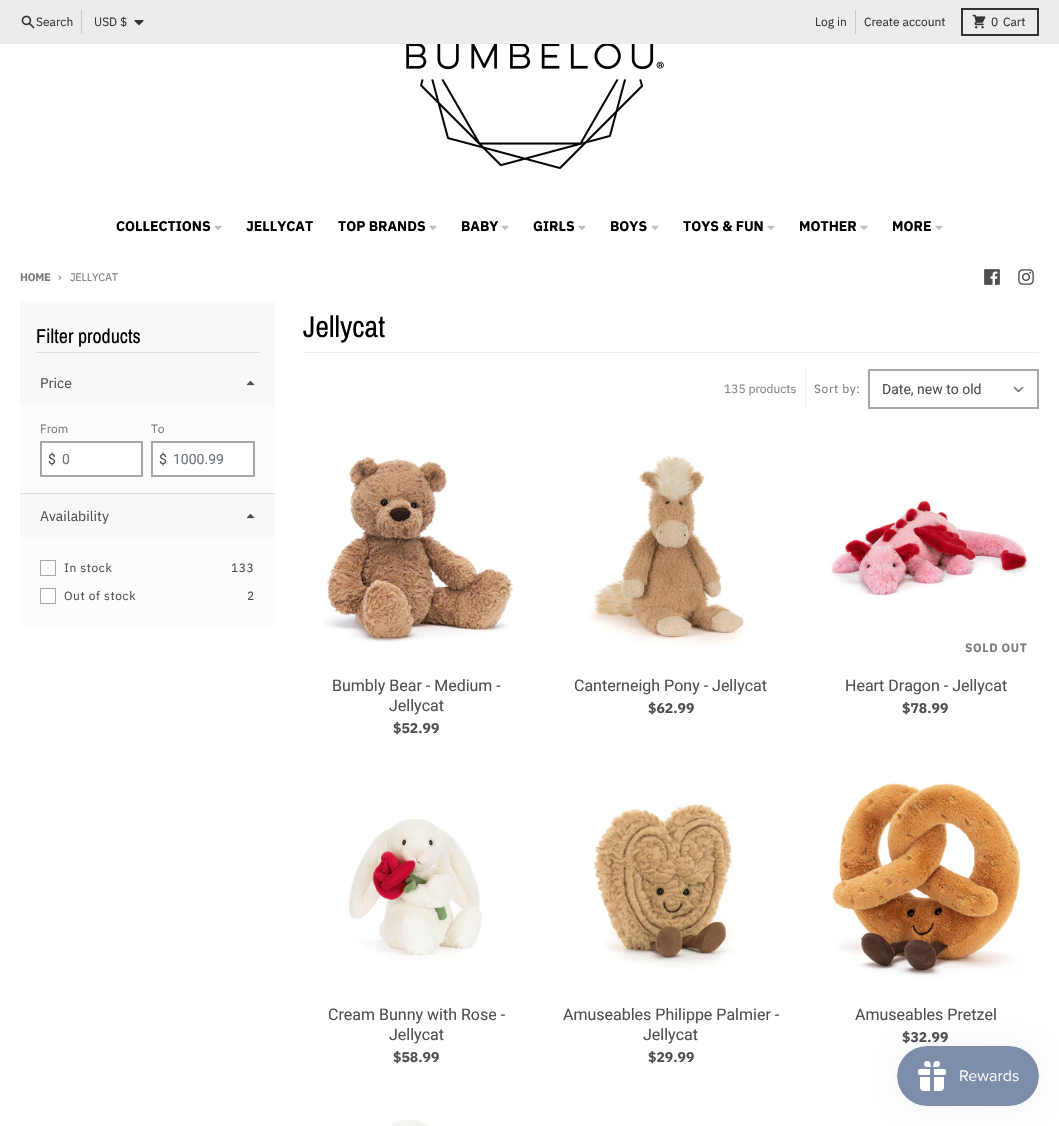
void draw(SkCanvas* canvas) {
	SkPaint paint;
	paint.setAntiAlias(true);
	auto spacedText = [&](const char* s, float x, float y, const SkFont& font, const SkPaint& ink, float letter, float word) {
		std::vector<SkGlyphID> glyphs(font.countText(s, strlen(s), SkTextEncoding::kUTF8));
		std::vector<float> xs(glyphs.size());
		font.textToGlyphs(s, strlen(s), SkTextEncoding::kUTF8, glyphs);
		font.getXPos(glyphs, xs, x);
		float extra = 0;
		for (size_t i = 0; i < glyphs.size(); i++) {
			xs[i] += extra;
			extra += letter + word * (glyphs[i] == font.unicharToGlyph(' '));
		}
		canvas->drawTextBlob(SkTextBlob::MakeFromPosHGlyphs(glyphs, xs, y, font), 0, 0, ink);
	};
	auto svgPath = [&](const char* data, bool evenOdd = false) {
		SkPath result = *SkParsePath::FromSVGString(data);
		if (evenOdd) result.setFillType(SkPathFillType::kEvenOdd);
		return result;
	};
	canvas->clear(0xffffffff);
	paint.setColor(0xffececec);
	canvas->drawRect(SkRect::MakeXYWH(0, 0, 1059, 44), paint);
	canvas->drawImageRect(SkImages::DeferredFromEncodedData(SkData::MakeFromFileName("img1.png")), SkRect::MakeXYWH(21, 15, 14, 14), SkSamplingOptions());
	SkFont f1(fontMgr->matchFamilyStyle("IBM Plex Sans", SkFontStyle::Normal()), 12);
	f1.setSubpixel(true);
	paint.setColor(0xff333333);
	canvas->drawString("Search", 36, 26, f1, paint);
	paint.setColor(0xffc7c7c7);
	canvas->drawRect(SkRect::MakeXYWH(81, 10, 1, 24), paint);
	paint.setColor(0xff333333);
	canvas->drawString("USD $", 94, 26, f1, paint);
	canvas->drawImageRect(SkImages::DeferredFromEncodedData(SkData::MakeFromFileName("img2.png")), SkRect::MakeXYWH(134, 20, 10, 6), SkSamplingOptions());
	canvas->drawString("Log in", 815, 26, f1, paint);
	paint.setColor(0xffc7c7c7);
	canvas->drawRect(SkRect::MakeXYWH(855, 10, 1, 24), paint);
	paint.setColor(0xff333333);
	canvas->drawString("Create account", 864, 26, f1, paint);
	paint.setStroke(true);
	paint.setStrokeWidth(2);
	canvas->drawRect(SkRect::MakeXYWH(962, 9, 76, 26), paint);
	canvas->drawImageRect(SkImages::DeferredFromEncodedData(SkData::MakeFromFileName("img3.png")), SkRect::MakeXYWH(972, 14, 14, 15), SkSamplingOptions());
	paint.setStroke(false);
	canvas->drawString("0", 991, 26, f1, paint);
	canvas->drawString("Cart", 1003, 26, f1, paint);
	canvas->drawImageRect(SkImages::DeferredFromEncodedData(SkData::MakeFromFileName("img4.png")), SkRect::MakeXYWH(406, 44, 258, 125), SkSamplingOptions());
	SkFont f2(fontMgr->matchFamilyStyle("IBM Plex Sans", SkFontStyle::Bold()), 14);
	f2.setSubpixel(true);
	paint.setColor(0xff000000);
	canvas->drawString("COLLECTIONS", 116, 231, f2, paint);
	canvas->drawImageRect(SkImages::DeferredFromEncodedData(SkData::MakeFromFileName("img5.png")), SkRect::MakeXYWH(214, 225, 8, 5), SkSamplingOptions());
	canvas->drawString("JELLYCAT", 246, 231, f2, paint);
	canvas->drawString("TOP BRANDS", 338, 231, f2, paint);
	canvas->drawImageRect(SkImages::DeferredFromEncodedData(SkData::MakeFromFileName("img5.png")), SkRect::MakeXYWH(429, 225, 8, 5), SkSamplingOptions());
	canvas->drawString("BABY", 461, 231, f2, paint);
	canvas->drawImageRect(SkImages::DeferredFromEncodedData(SkData::MakeFromFileName("img5.png")), SkRect::MakeXYWH(501, 225, 8, 5), SkSamplingOptions());
	canvas->drawString("GIRLS", 533, 231, f2, paint);
	canvas->drawImageRect(SkImages::DeferredFromEncodedData(SkData::MakeFromFileName("img5.png")), SkRect::MakeXYWH(578, 225, 8, 5), SkSamplingOptions());
	canvas->drawString("BOYS", 610, 231, f2, paint);
	canvas->drawImageRect(SkImages::DeferredFromEncodedData(SkData::MakeFromFileName("img5.png")), SkRect::MakeXYWH(651, 225, 8, 5), SkSamplingOptions());
	canvas->drawString("TOYS & FUN", 683, 231, f2, paint);
	canvas->drawImageRect(SkImages::DeferredFromEncodedData(SkData::MakeFromFileName("img5.png")), SkRect::MakeXYWH(767, 225, 8, 5), SkSamplingOptions());
	canvas->drawString("MOTHER", 799, 231, f2, paint);
	canvas->drawImageRect(SkImages::DeferredFromEncodedData(SkData::MakeFromFileName("img5.png")), SkRect::MakeXYWH(860, 225, 8, 5), SkSamplingOptions());
	canvas->drawString("MORE", 892, 231, f2, paint);
	canvas->drawImageRect(SkImages::DeferredFromEncodedData(SkData::MakeFromFileName("img5.png")), SkRect::MakeXYWH(935, 225, 8, 5), SkSamplingOptions());
	SkFont f3(fontMgr->matchFamilyStyle("IBM Plex Sans", SkFontStyle::Bold()), 11);
	f3.setSubpixel(true);
	paint.setColor(0xff7b7b7b);
	spacedText("HOME", 20, 281, f3, paint, -0.25, 0);
	spacedText("›", 58, 281, f1, paint, -0.25, 0);
	SkFont f4(fontMgr->matchFamilyStyle("IBM Plex Sans", SkFontStyle::Normal()), 11);
	f4.setSubpixel(true);
	spacedText("JELLYCAT", 70, 281, f4, paint, -0.25, 0);
	canvas->drawImageRect(SkImages::DeferredFromEncodedData(SkData::MakeFromFileName("img6.png")), SkRect::MakeXYWH(984, 269, 16, 16), SkSamplingOptions());
	canvas->drawImageRect(SkImages::DeferredFromEncodedData(SkData::MakeFromFileName("img7.png")), SkRect::MakeXYWH(1018, 269, 16, 16), SkSamplingOptions());
	paint.setColor(0xfff8f8f8);
	canvas->drawRect(SkRect::MakeXYWH(20, 302, 255, 236), paint);
	paint.setColor(0xffdcdcdc);
	canvas->drawRect(SkRect::MakeXYWH(36, 352, 223, 1), paint);
	SkFont f5(fontMgr->matchFamilyStyle("Archivo Narrow", SkFontStyle::Normal()), 20);
	f5.setSubpixel(true);
	paint.setColor(0xff000000);
	canvas->drawString("Filter products", 36, 343, f5, paint);
	SkFont f6(fontMgr->matchFamilyStyle("IBM Plex Sans", SkFontStyle::Normal()), 14);
	f6.setSubpixel(true);
	paint.setColor(0xff4f4f4f);
	canvas->drawString("Price", 40, 388, f6, paint);
	canvas->drawImageRect(SkImages::DeferredFromEncodedData(SkData::MakeFromFileName("img8.png")), SkRect::MakeXYWH(247, 381, 8, 5), SkSamplingOptions());
	paint.setColor(0xfffcfcfc);
	canvas->drawRect(SkRect::MakeXYWH(20, 405, 255, 88), paint);
	paint.setColor(0xff7b7b7b);
	canvas->drawString("From", 40, 433, f1, paint);
	paint.setColor(0xffffffff);
	canvas->drawRect(SkRect::MakeXYWH(41, 442, 101, 34), paint);
	paint.setStroke(true);
	paint.setColor(0xffa7a7a7);
	canvas->drawRect(SkRect::MakeXYWH(41, 442, 101, 34), paint);
	SkFont f7(fontMgr->matchFamilyStyle("Roboto", SkFontStyle::Normal()), 14);
	f7.setSubpixel(true);
	paint.setStroke(false);
	paint.setColor(0xff4f4f4f);
	canvas->drawString("$", 48, 464, f7, paint);
	paint.setColor(0xff6b7280);
	canvas->drawString("0", 62, 464, f7, paint);
	paint.setColor(0xff7b7b7b);
	canvas->drawString("To", 151, 433, f1, paint);
	paint.setColor(0xffffffff);
	canvas->drawRect(SkRect::MakeXYWH(152, 442, 102, 34), paint);
	paint.setStroke(true);
	paint.setColor(0xffa7a7a7);
	canvas->drawRect(SkRect::MakeXYWH(152, 442, 102, 34), paint);
	paint.setStroke(false);
	paint.setColor(0xff4f4f4f);
	canvas->drawString("$", 159, 464, f7, paint);
	paint.setColor(0xff6b7280);
	canvas->drawString("1000.99", 173, 464, f7, paint);
	paint.setColor(0xffdcdcdc);
	canvas->drawRect(SkRect::MakeXYWH(20, 493, 255, 1), paint);
	paint.setColor(0xff4f4f4f);
	canvas->drawString("Availability", 40, 521, f6, paint);
	canvas->drawImageRect(SkImages::DeferredFromEncodedData(SkData::MakeFromFileName("img8.png")), SkRect::MakeXYWH(247, 514, 8, 5), SkSamplingOptions());
	paint.setColor(0xfffcfcfc);
	canvas->drawRect(SkRect::MakeXYWH(20, 538, 255, 88), paint);
	paint.setColor(0xffffffff);
	canvas->drawRect(SkRect::MakeXYWH(40.5, 560.5, 15, 15), paint);
	paint.setStroke(true);
	paint.setStrokeWidth(1);
	paint.setColor(0xffa7a7a7);
	canvas->drawRect(SkRect::MakeXYWH(40.5, 560.5, 15, 15), paint);
	paint.setStroke(false);
	paint.setColor(0xff4f4f4f);
	spacedText("In stock", 64, 572, f1, paint, 0.6, 0);
	spacedText("133", 231, 572, f1, paint, 0.6, 0);
	paint.setColor(0xffffffff);
	canvas->drawRect(SkRect::MakeXYWH(40.5, 588.5, 15, 15), paint);
	paint.setStroke(true);
	paint.setColor(0xffa7a7a7);
	canvas->drawRect(SkRect::MakeXYWH(40.5, 588.5, 15, 15), paint);
	paint.setStroke(false);
	paint.setColor(0xff4f4f4f);
	spacedText("Out of stock", 64, 600, f1, paint, 0.6, 0);
	spacedText("2", 247, 600, f1, paint, 0.6, 0);
	paint.setColor(0xffededed);
	canvas->drawRect(SkRect::MakeXYWH(303, 352, 736, 1), paint);
	SkFont f8(fontMgr->matchFamilyStyle("Archivo Narrow", SkFontStyle::Normal()), 30);
	f8.setSubpixel(true);
	paint.setColor(0xff000000);
	canvas->drawString("Jellycat", 303, 337, f8, paint);
	paint.setColor(0xff848484);
	canvas->drawString("135 products", 724, 393, f1, paint);
	paint.setColor(0xffededed);
	canvas->drawRect(SkRect::MakeXYWH(805, 369, 1, 40), paint);
	paint.setColor(0xff7b7b7b);
	spacedText("Sort by:", 814, 393, f1, paint, 0.6, 0);
	paint.setStroke(true);
	paint.setStrokeWidth(1.6);
	paint.setStrokeCap(SkPaint::kRound_Cap);
	paint.setStrokeJoin(SkPaint::kRound_Join);
	paint.setColor(0xff6b7280);
	canvas->drawPath(svgPath("M1014.5 387.5L1018.5 391.5L1022.5 387.5"), paint);
	paint.setStrokeWidth(2);
	paint.setStrokeCap(SkPaint::kButt_Cap);
	paint.setStrokeJoin(SkPaint::kMiter_Join);
	paint.setColor(0xffa7a7a7);
	canvas->drawRect(SkRect::MakeXYWH(869, 370, 169, 38), paint);
	paint.setStroke(false);
	paint.setColor(0xff4f4f4f);
	canvas->drawString("Date, new to old", 882, 394, f7, paint);
	canvas->drawImageRect(SkImages::DeferredFromEncodedData(SkData::MakeFromFileName("img9.png")), SkRect::MakeXYWH(323, 456, 192, 187), SkSamplingOptions());
	SkFont f9(fontMgr->matchFamilyStyle("Roboto", SkFontStyle::Normal()), 16);
	f9.setSubpixel(true);
	canvas->drawString("Bumbly Bear - Medium -", 332, 691, f9, paint);
	canvas->drawString("Jellycat", 389, 711, f9, paint);
	canvas->drawString("$52.99", 393, 733, f2, paint);
	canvas->drawImageRect(SkImages::DeferredFromEncodedData(SkData::MakeFromFileName("img10.png")), SkRect::MakeXYWH(584, 455, 164, 194), SkSamplingOptions());
	canvas->drawString("Canterneigh Pony - Jellycat", 574, 691, f9, paint);
	canvas->drawString("$62.99", 648, 713, f2, paint);
	canvas->drawImageRect(SkImages::DeferredFromEncodedData(SkData::MakeFromFileName("img11.png")), SkRect::MakeXYWH(830, 498, 200, 98), SkSamplingOptions());
	SkFont f10(fontMgr->matchFamilyStyle("IBM Plex Sans", SkFontStyle::Bold()), 12);
	f10.setSubpixel(true);
	paint.setColor(0xff7b7b7b);
	spacedText("SOLD OUT", 965, 652, f10, paint, 0.6, 0);
	paint.setColor(0xff4f4f4f);
	canvas->drawString("Heart Dragon - Jellycat", 845, 691, f9, paint);
	canvas->drawString("$78.99", 902, 713, f2, paint);
	canvas->drawImageRect(SkImages::DeferredFromEncodedData(SkData::MakeFromFileName("img12.png")), SkRect::MakeXYWH(348, 819, 135, 141), SkSamplingOptions());
	canvas->drawString("Cream Bunny with Rose -", 328, 1020, f9, paint);
	canvas->drawString("Jellycat", 389, 1040, f9, paint);
	canvas->drawString("$58.99", 393, 1062, f2, paint);
	canvas->drawImageRect(SkImages::DeferredFromEncodedData(SkData::MakeFromFileName("img13.png")), SkRect::MakeXYWH(593, 802, 145, 169), SkSamplingOptions());
	canvas->drawString("Amuseables Philippe Palmier -", 563, 1020, f9, paint);
	canvas->drawString("Jellycat", 643, 1040, f9, paint);
	canvas->drawString("$29.99", 648, 1062, f2, paint);
	canvas->drawImageRect(SkImages::DeferredFromEncodedData(SkData::MakeFromFileName("img14.png")), SkRect::MakeXYWH(831, 780, 192, 198), SkSamplingOptions());
	canvas->drawString("Amuseables Pretzel", 855, 1020, f9, paint);
	canvas->drawString("$32.99", 902, 1042, f2, paint);
	canvas->drawImageRect(SkImages::DeferredFromEncodedData(SkData::MakeFromFileName("img15.png")), SkRect::MakeXYWH(391, 1119, 39, 7), SkSamplingOptions());
	paint.setColor(0x0d000000);
	paint.setMaskFilter(SkMaskFilter::MakeBlur(kNormal_SkBlurStyle, 12.5));
	canvas->drawRoundRect(SkRect::MakeXYWH(897, 1046, 142, 60), 30, 30, paint);
	paint.setMaskFilter(nullptr);
	canvas->drawImageRect(SkImages::DeferredFromEncodedData(SkData::MakeFromFileName("img16.png")), SkRect::MakeXYWH(897, 1046, 142, 60), SkSamplingOptions());
}
